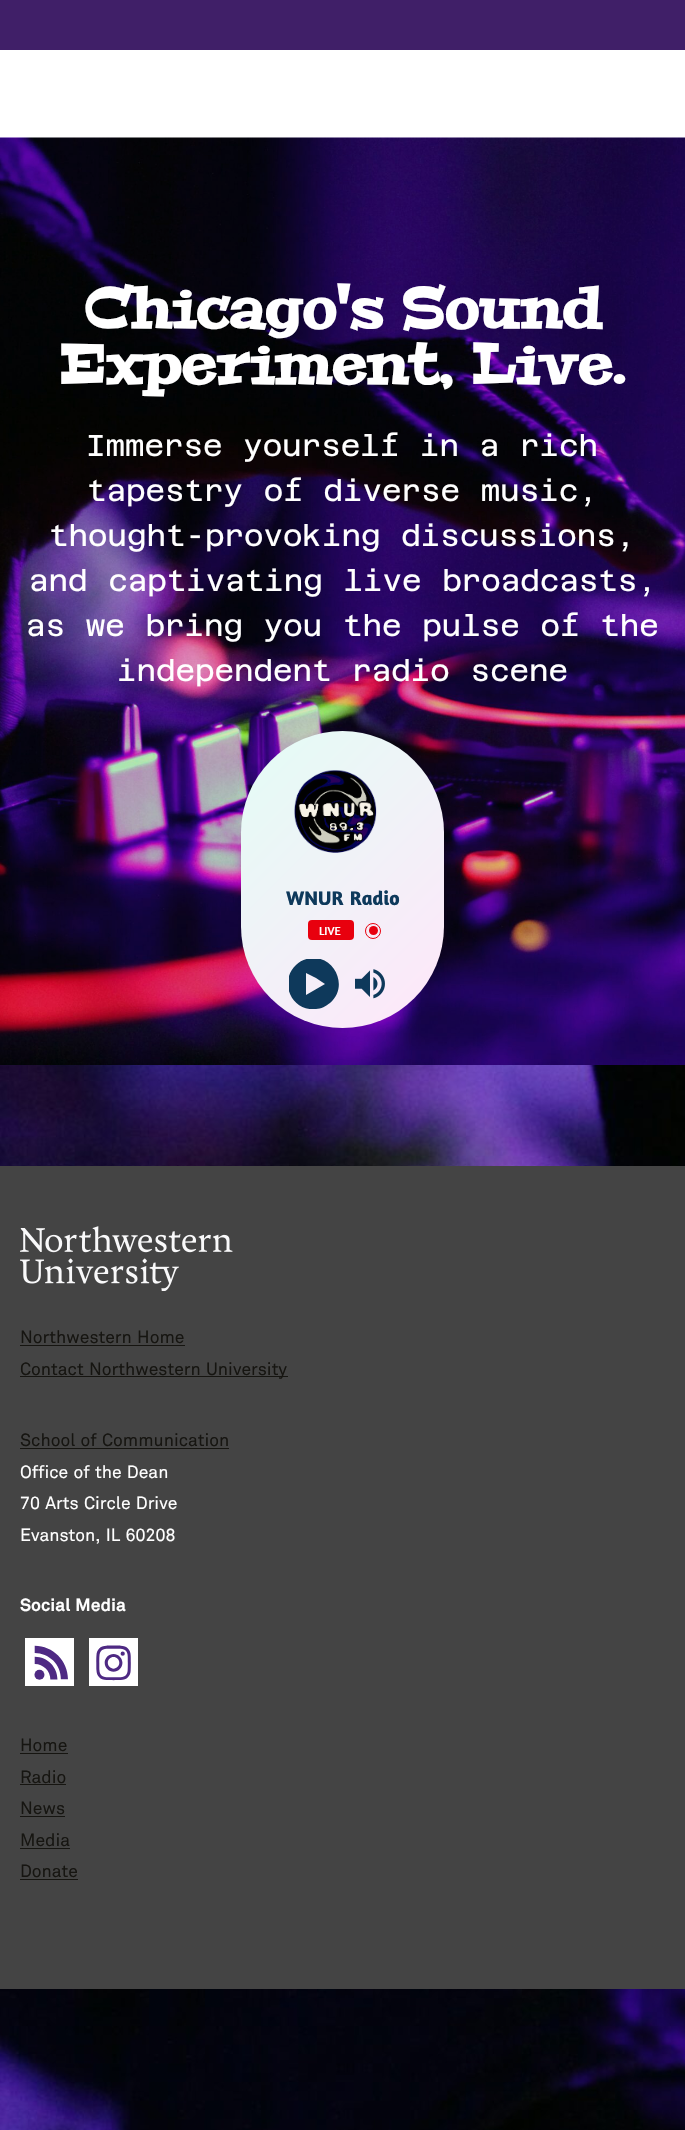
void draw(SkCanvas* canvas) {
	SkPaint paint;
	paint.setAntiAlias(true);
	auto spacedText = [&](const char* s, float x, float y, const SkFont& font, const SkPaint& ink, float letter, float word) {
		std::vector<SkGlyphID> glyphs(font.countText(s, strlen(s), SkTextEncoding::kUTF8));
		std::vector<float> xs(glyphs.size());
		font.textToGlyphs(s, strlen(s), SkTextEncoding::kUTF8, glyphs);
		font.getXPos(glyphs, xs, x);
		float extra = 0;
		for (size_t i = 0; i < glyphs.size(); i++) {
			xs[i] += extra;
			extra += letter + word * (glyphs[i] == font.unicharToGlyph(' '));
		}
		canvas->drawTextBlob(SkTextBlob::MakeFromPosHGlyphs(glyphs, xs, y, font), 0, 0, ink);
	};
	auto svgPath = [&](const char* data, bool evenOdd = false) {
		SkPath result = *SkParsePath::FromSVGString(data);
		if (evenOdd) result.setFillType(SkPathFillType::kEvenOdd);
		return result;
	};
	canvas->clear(0xffffffff);
	canvas->drawImageRect(SkImages::DeferredFromEncodedData(SkData::MakeFromFileName("img1.png")), SkRect::MakeXYWH(0, 1065, 685, 1065), SkSamplingOptions());
	paint.setColor(0xff401f68);
	canvas->drawRect(SkRect::MakeXYWH(0, 0, 685, 50), paint);
	canvas->drawImageRect(SkImages::DeferredFromEncodedData(SkData::MakeFromFileName("img2.png")), SkRect::MakeXYWH(0, 137, 685, 928), SkSamplingOptions());
	SkFont f1(fontMgr->matchFamilyStyle("Peralta", SkFontStyle::Bold()), 56.25);
	f1.setSubpixel(true);
	paint.setColor(0xffffffff);
	spacedText("Chicago's Sound", 84, 328, f1, paint, 0, 1.25);
	spacedText("Experiment, Live.", 59, 384, f1, paint, 0, 1.25);
	SkFont f2(fontMgr->matchFamilyStyle("Azeret Mono", SkFontStyle::Normal()), 30);
	f2.setSubpixel(true);
	spacedText("Immerse yourself in a rich", 86, 456, f2, paint, 0, 1.25);
	spacedText("tapestry of diverse music,", 87, 501, f2, paint, 0, 1.25);
	spacedText("thought-provoking discussions,", 49, 546, f2, paint, 0, 1.25);
	spacedText("and captivating live broadcasts,", 29, 591, f2, paint, 0, 1.25);
	spacedText("as we bring you the pulse of the", 26, 636, f2, paint, 0, 1.25);
	spacedText("independent radio scene", 117, 681, f2, paint, 0, 1.25);
	{
		const SkColor colors[] = {0xffe3fdf5, 0xffffe6fa};
		const float stops[] = {0, 1};
		const SkPoint ends[] = {{218, 755}, {467, 1004}};
		paint.setShader(SkGradientShader::MakeLinear(ends, colors, stops, 2, SkTileMode::kClamp));
		paint.setAlpha(255);
	}
	canvas->drawRoundRect(SkRect::MakeXYWH(241, 731, 203, 297), 101.5, 101.5, paint);
	canvas->drawImageRect(SkImages::DeferredFromEncodedData(SkData::MakeFromFileName("img3.png")), SkRect::MakeXYWH(294, 770, 83, 83), SkSamplingOptions());
	SkFont f3(fontMgr->matchFamilyStyle("Amaranth", SkFontStyle::Bold()), 20);
	f3.setSubpixel(true);
	paint.setShader(nullptr);
	paint.setColor(0xff0e395b);
	spacedText("WNUR Radio", 286, 905, f3, paint, 0, 1.25);
	paint.setColor(0xffe8000e);
	canvas->drawRoundRect(SkRect::MakeXYWH(308, 920, 46, 20), 4, 4, paint);
	SkFont f4(fontMgr->matchFamilyStyle("Amaranth", SkFontStyle::Normal()), 12);
	f4.setSubpixel(true);
	paint.setColor(0xffffffff);
	canvas->drawString("LIVE", 319, 935, f4, paint);
	paint.setColor(0xffe8000e);
	canvas->drawCircle(373.5, 930.5, 4.5, paint);
	paint.setStroke(true);
	paint.setStrokeWidth(1);
	canvas->drawCircle(373, 931, 7.5, paint);
	canvas->save();
	canvas->clipRect(SkRect::MakeXYWH(289, 959, 51, 50));
	paint.setStroke(false);
	paint.setColor(0xff0e395b);
	canvas->drawPath(svgPath("M311 958C305 959 300 961 296 965C278 982 292 1012 316 1009C321 1009 326 1006 330 1003C349 987 335 956 311 958ZM316 978L325 984L306 995V973Z"), paint);
	canvas->restore();
	canvas->drawImageRect(SkImages::DeferredFromEncodedData(SkData::MakeFromFileName("img4.png")), SkRect::MakeXYWH(355, 969, 30, 30), SkSamplingOptions());
	paint.setColor(0xff444444);
	canvas->drawRect(SkRect::MakeXYWH(0, 1166, 685, 823), paint);
	canvas->drawImageRect(SkImages::DeferredFromEncodedData(SkData::MakeFromFileName("img5.png")), SkRect::MakeXYWH(20, 1226, 213, 65), SkSamplingOptions());
	SkFont f5(fontMgr->matchFamilyStyle("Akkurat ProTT", SkFontStyle::Normal()), 17.5);
	f5.setSubpixel(true);
	paint.setColor(0xff161511);
	spacedText("Northwestern Home", 20, 1343, f5, paint, 0, 1.25);
	canvas->drawRect(SkRect::MakeXYWH(20, 1345, 165, 1), paint);
	canvas->drawRect(SkRect::MakeXYWH(20, 1376, 268, 1), paint);
	spacedText("Contact Northwestern University", 20, 1375, f5, paint, 0, 1.25);
	spacedText("School of Communication", 20, 1446, f5, paint, 0, 1.25);
	canvas->drawRect(SkRect::MakeXYWH(20, 1448, 209, 1), paint);
	paint.setColor(0xffffffff);
	spacedText("Office of the Dean", 20, 1478, f5, paint, 0, 1.25);
	spacedText("70 Arts Circle Drive", 20, 1509, f5, paint, 0, 1.25);
	spacedText("Evanston, IL 60208", 20, 1541, f5, paint, 0, 1.25);
	SkFont f6(fontMgr->matchFamilyStyle("Akkurat ProTT", SkFontStyle::Bold()), 17.5);
	f6.setSubpixel(true);
	spacedText("Social Media", 20, 1611, f6, paint, 0, 1.25);
	canvas->drawRect(SkRect::MakeXYWH(25, 1638, 49, 48), paint);
	canvas->drawImageRect(SkImages::DeferredFromEncodedData(SkData::MakeFromFileName("img6.png")), SkRect::MakeXYWH(34, 1645, 34, 35), SkSamplingOptions());
	canvas->drawRect(SkRect::MakeXYWH(89, 1638, 49, 48), paint);
	canvas->drawImageRect(SkImages::DeferredFromEncodedData(SkData::MakeFromFileName("img7.png")), SkRect::MakeXYWH(96, 1645, 35, 36), SkSamplingOptions());
	paint.setColor(0xff161511);
	canvas->drawString("Home", 20, 1751, f5, paint);
	canvas->drawRect(SkRect::MakeXYWH(20, 1753, 48, 1), paint);
	canvas->drawString("Radio", 20, 1783, f5, paint);
	canvas->drawRect(SkRect::MakeXYWH(20, 1784, 46, 1), paint);
	canvas->drawString("News", 20, 1814, f5, paint);
	canvas->drawRect(SkRect::MakeXYWH(20, 1816, 45, 1), paint);
	canvas->drawString("Media", 20, 1846, f5, paint);
	canvas->drawRect(SkRect::MakeXYWH(20, 1848, 50, 1), paint);
	canvas->drawString("Donate", 20, 1877, f5, paint);
	canvas->drawRect(SkRect::MakeXYWH(20, 1879, 58, 1), paint);
}
